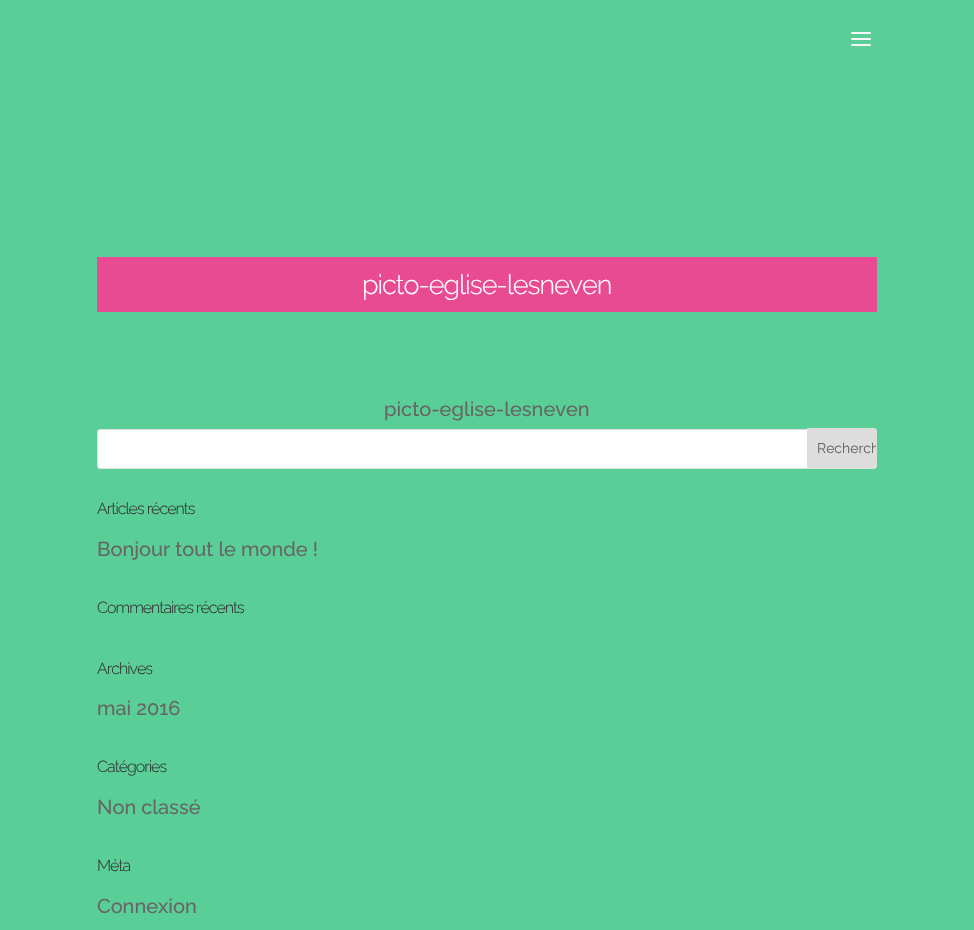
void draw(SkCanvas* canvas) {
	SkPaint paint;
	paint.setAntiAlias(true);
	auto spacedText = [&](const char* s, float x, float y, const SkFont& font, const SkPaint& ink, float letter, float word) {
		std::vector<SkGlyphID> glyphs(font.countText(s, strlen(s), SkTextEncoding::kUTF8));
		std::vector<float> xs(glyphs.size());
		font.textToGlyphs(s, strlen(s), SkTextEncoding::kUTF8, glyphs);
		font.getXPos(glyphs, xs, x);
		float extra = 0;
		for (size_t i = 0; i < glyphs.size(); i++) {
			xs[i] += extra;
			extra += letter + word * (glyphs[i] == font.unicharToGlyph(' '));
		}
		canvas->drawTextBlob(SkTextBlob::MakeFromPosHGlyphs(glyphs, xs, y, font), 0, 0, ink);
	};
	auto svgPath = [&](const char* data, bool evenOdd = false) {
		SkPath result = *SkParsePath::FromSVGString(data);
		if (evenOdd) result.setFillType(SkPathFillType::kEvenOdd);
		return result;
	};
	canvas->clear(0xff59ce96);
	canvas->drawImageRect(SkImages::DeferredFromEncodedData(SkData::MakeFromFileName("img1.png")), SkRect::MakeXYWH(851, 32, 20, 14), SkSamplingOptions());
	paint.setColor(0xffe84b92);
	canvas->drawRect(SkRect::MakeXYWH(97, 257, 780, 55), paint);
	SkFont f1(fontMgr->matchFamilyStyle("Raleway", SkFontStyle(300, SkFontStyle::kNormal_Width, SkFontStyle::kUpright_Slant)), 27);
	f1.setSubpixel(true);
	paint.setColor(0xffffffff);
	spacedText("picto-eglise-lesneven", 362, 294, f1, paint, -1, 0);
	SkFont f2(fontMgr->matchFamilyStyle("Raleway", SkFontStyle(500, SkFontStyle::kNormal_Width, SkFontStyle::kUpright_Slant)), 20);
	f2.setSubpixel(true);
	paint.setColor(0xff666666);
	canvas->drawString("picto-eglise-lesneven", 384, 416, f2, paint);
	paint.setColor(0xffffffff);
	canvas->drawRoundRect(SkRect::MakeXYWH(97.5, 429.5, 779, 39), 2.5, 2.5, paint);
	paint.setStroke(true);
	paint.setStrokeWidth(1);
	paint.setColor(0xffdddddd);
	canvas->drawRoundRect(SkRect::MakeXYWH(97.5, 429.5, 779, 39), 2.5, 2.5, paint);
	paint.setStroke(false);
	canvas->drawPath(svgPath("M807.5 428.5H874C875.5 428.5 876.5 429.5 876.5 431V465C876.5 466.5 875.5 467.5 874 467.5H807.5Z"), paint);
	paint.setStroke(true);
	canvas->drawPath(svgPath("M807.5 428.5H874C875.5 428.5 876.5 429.5 876.5 431V465C876.5 466.5 875.5 467.5 874 467.5H807.5Z"), paint);
	canvas->save();
	canvas->clipPath(svgPath("M808 429H874C875 429 876 430 876 431V465C876 466 875 467 874 467H808Z"), true);
	SkFont f3(fontMgr->matchFamilyStyle("Raleway", SkFontStyle::Normal()), 14);
	f3.setSubpixel(true);
	paint.setStroke(false);
	paint.setColor(0xff666666);
	canvas->drawString("Recherch", 817, 453, f3, paint);
	canvas->restore();
	SkFont f4(fontMgr->matchFamilyStyle("Raleway", SkFontStyle(300, SkFontStyle::kNormal_Width, SkFontStyle::kUpright_Slant)), 16);
	f4.setSubpixel(true);
	paint.setColor(0xff333333);
	spacedText("Articles récents", 97, 514, f4, paint, -1, 0);
	paint.setColor(0xff666666);
	canvas->drawString("Bonjour tout le monde !", 97, 556, f2, paint);
	paint.setColor(0xff333333);
	spacedText("Commentaires récents", 97, 613, f4, paint, -1, 0);
	spacedText("Archives", 97, 674, f4, paint, -1, 0);
	paint.setColor(0xff666666);
	canvas->drawString("mai 2016", 97, 715, f2, paint);
	paint.setColor(0xff333333);
	spacedText("Catégories", 97, 772, f4, paint, -1, 0);
	paint.setColor(0xff666666);
	canvas->drawString("Non classé", 97, 814, f2, paint);
	paint.setColor(0xff333333);
	spacedText("Méta", 97, 871, f4, paint, -1, 0);
	paint.setColor(0xff666666);
	canvas->drawString("Connexion", 97, 913, f2, paint);
}
